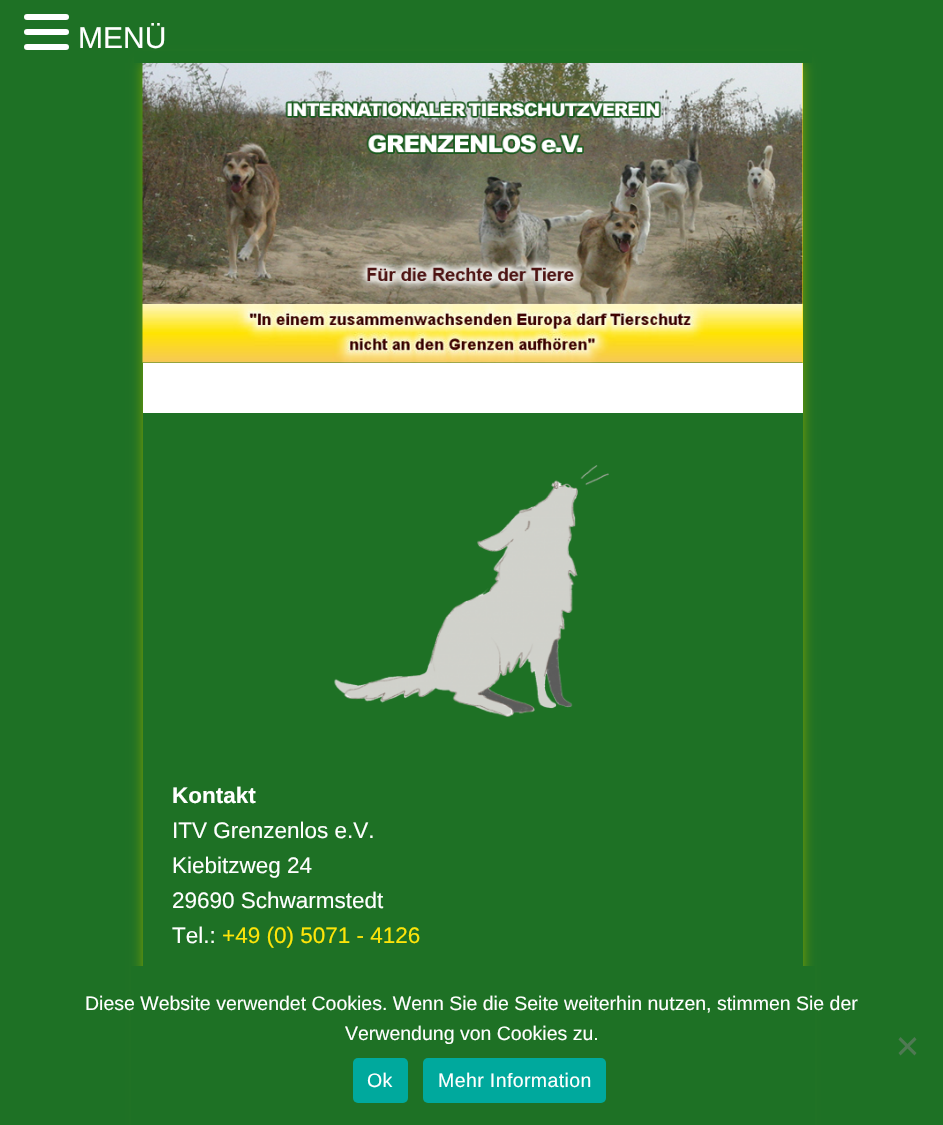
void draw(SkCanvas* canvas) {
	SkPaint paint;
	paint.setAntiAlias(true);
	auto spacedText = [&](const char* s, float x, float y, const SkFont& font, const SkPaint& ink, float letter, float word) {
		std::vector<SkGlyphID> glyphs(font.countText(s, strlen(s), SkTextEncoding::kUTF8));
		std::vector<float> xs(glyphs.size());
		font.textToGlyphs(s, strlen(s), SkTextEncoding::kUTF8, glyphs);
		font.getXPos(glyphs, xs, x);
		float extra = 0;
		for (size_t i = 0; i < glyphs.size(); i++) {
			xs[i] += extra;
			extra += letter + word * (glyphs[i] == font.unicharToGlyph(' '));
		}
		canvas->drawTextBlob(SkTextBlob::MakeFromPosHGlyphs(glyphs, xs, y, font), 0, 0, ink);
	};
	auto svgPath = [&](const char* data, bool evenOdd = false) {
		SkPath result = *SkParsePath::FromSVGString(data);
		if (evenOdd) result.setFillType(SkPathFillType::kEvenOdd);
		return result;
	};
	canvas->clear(0xff1e7125);
	paint.setColor(0xff7fa101);
	paint.setMaskFilter(SkMaskFilter::MakeBlur(kNormal_SkBlurStyle, 6));
	canvas->drawRect(SkRect::MakeXYWH(143, 63, 660, 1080), paint);
	paint.setMaskFilter(nullptr);
	paint.setColor(0xff1e7125);
	canvas->drawRect(SkRect::MakeXYWH(134, 51, 678, 12), paint);
	paint.setColor(0xffffffff);
	canvas->drawRoundRect(SkRect::MakeXYWH(24, 14, 45, 6), 3, 3, paint);
	canvas->drawRoundRect(SkRect::MakeXYWH(24, 29, 45, 6), 3, 3, paint);
	canvas->drawRoundRect(SkRect::MakeXYWH(24, 44, 45, 6), 3, 3, paint);
	SkFont f1(fontMgr->matchFamilyStyle("Liberation Sans", SkFontStyle::Normal()), 30);
	f1.setSubpixel(true);
	canvas->drawString("MENÜ", 78, 48, f1, paint);
	canvas->drawRect(SkRect::MakeXYWH(143, 363, 660, 50), paint);
	paint.setColor(0xfffee509);
	canvas->drawRect(SkRect::MakeXYWH(802, 63, 1, 300), paint);
	canvas->drawImageRect(SkImages::DeferredFromEncodedData(SkData::MakeFromFileName("img1.png")), SkRect::MakeXYWH(142, 63, 661, 300), SkSamplingOptions());
	paint.setColor(0xff1e7125);
	canvas->drawRect(SkRect::MakeXYWH(143, 413, 660, 553), paint);
	canvas->drawImageRect(SkImages::DeferredFromEncodedData(SkData::MakeFromFileName("img2.png")), SkRect::MakeXYWH(334, 465, 275, 252), SkSamplingOptions());
	SkFont f2(fontMgr->matchFamilyStyle("Liberation Sans", SkFontStyle::Bold()), 22.5);
	f2.setSubpixel(true);
	paint.setColor(0xffffffff);
	canvas->drawString("Kontakt", 172, 803, f2, paint);
	SkFont f3(fontMgr->matchFamilyStyle("Liberation Sans", SkFontStyle::Normal()), 22.5);
	f3.setSubpixel(true);
	canvas->drawString("ITV Grenzenlos e.V.", 172, 838, f3, paint);
	canvas->drawString("Kiebitzweg 24", 172, 873, f3, paint);
	canvas->drawString("29690 Schwarmstedt", 172, 908, f3, paint);
	canvas->drawString("Tel.:", 172, 943, f3, paint);
	paint.setColor(0xfffee509);
	canvas->drawString("+49 (0) 5071 - 4126", 222, 943, f3, paint);
	paint.setColor(0xff1e7125);
	canvas->drawRect(SkRect::MakeXYWH(131, 966, 684, 159), paint);
	SkFont f4(fontMgr->matchFamilyStyle("Liberation Sans", SkFontStyle::Normal()), 19.5);
	f4.setSubpixel(true);
	paint.setColor(0xffffffff);
	canvas->drawString("Diese Website verwendet Cookies. Wenn Sie die Seite weiterhin nutzen, stimmen Sie der", 85, 1010, f4, paint);
	canvas->drawString("Verwendung von Cookies zu.", 345, 1040, f4, paint);
	paint.setColor(0xff4f7953);
	canvas->drawPath(svgPath("M914.5 1037L916.5 1039.5L900.5 1055.5L898.5 1053Z"), paint);
	canvas->drawPath(svgPath("M898.5 1039.5L900.5 1037L916.5 1053L914.5 1055.5Z"), paint);
	paint.setColor(0xff00a99d);
	canvas->drawRoundRect(SkRect::MakeXYWH(353, 1058, 55, 45), 5, 5, paint);
	paint.setColor(0xffffffff);
	spacedText("Ok", 367, 1087, f4, paint, 0.4, 0);
	paint.setColor(0xff00a99d);
	canvas->drawRoundRect(SkRect::MakeXYWH(423, 1058, 183, 45), 5, 5, paint);
	paint.setColor(0xffffffff);
	spacedText("Mehr Information", 438, 1087, f4, paint, 0.4, 0);
}
